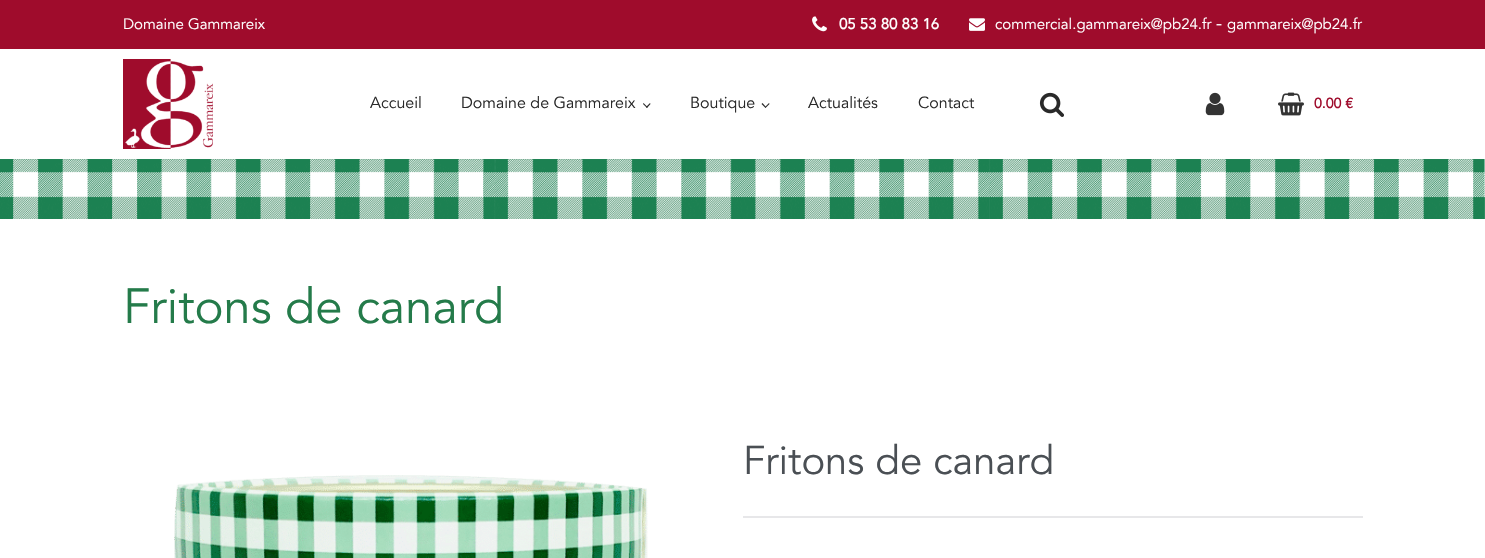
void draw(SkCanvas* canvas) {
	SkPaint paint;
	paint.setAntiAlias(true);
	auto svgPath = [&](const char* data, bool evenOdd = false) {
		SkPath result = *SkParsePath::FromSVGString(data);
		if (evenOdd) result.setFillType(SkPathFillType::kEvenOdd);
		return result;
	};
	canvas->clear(0xffffffff);
	paint.setColor(0xff9f0c2c);
	canvas->drawRect(SkRect::MakeXYWH(0, 0, 1485, 49), paint);
	SkFont f1(fontMgr->matchFamilyStyle("Avenir", SkFontStyle::Normal()), 15);
	f1.setSubpixel(true);
	paint.setColor(0xffffffff);
	canvas->drawString("Domaine Gammareix", 123, 29, f1, paint);
	canvas->drawImageRect(SkImages::DeferredFromEncodedData(SkData::MakeFromFileName("img1.png")), SkRect::MakeXYWH(812, 16, 15, 16), SkSamplingOptions());
	SkFont f2(fontMgr->matchFamilyStyle("Avenir", SkFontStyle::Bold()), 15);
	f2.setSubpixel(true);
	canvas->drawString("05 53 80 83 16", 839, 29, f2, paint);
	canvas->drawImageRect(SkImages::DeferredFromEncodedData(SkData::MakeFromFileName("img2.png")), SkRect::MakeXYWH(969, 18, 16, 13), SkSamplingOptions());
	canvas->drawString("commercial.gammareix@pb24.fr", 995, 29, f1, paint);
	SkFont f3(fontMgr->matchFamilyStyle("Avenir", SkFontStyle::Normal()), 18);
	f3.setSubpixel(true);
	canvas->drawString("-", 1216, 29, f3, paint);
	canvas->drawString("gammareix@pb24.fr", 1227, 29, f1, paint);
	canvas->drawImageRect(SkImages::DeferredFromEncodedData(SkData::MakeFromFileName("img3.png")), SkRect::MakeXYWH(123, 59, 90, 90), SkSamplingOptions());
	SkFont f4(fontMgr->matchFamilyStyle("Avenir", SkFontStyle::Normal()), 16);
	f4.setSubpixel(true);
	paint.setColor(0xff292929);
	canvas->drawString("Accueil", 370, 108, f4, paint);
	canvas->drawString("Domaine de Gammareix", 461, 108, f4, paint);
	canvas->drawPath(svgPath("M650.5 104L647 108L646 107L650 103Z"), paint);
	canvas->drawPath(svgPath("M647.5 107L647 108L643 104L643.5 103Z"), paint);
	canvas->drawString("Boutique", 690, 108, f4, paint);
	canvas->drawPath(svgPath("M769.5 104L765.5 108L765 107L769 103Z"), paint);
	canvas->drawPath(svgPath("M766 107L765.5 108L761.5 104L762.5 103Z"), paint);
	canvas->drawString("Actualités", 808, 108, f4, paint);
	canvas->drawString("Contact", 918, 108, f4, paint);
	canvas->drawImageRect(SkImages::DeferredFromEncodedData(SkData::MakeFromFileName("img4.png")), SkRect::MakeXYWH(1039, 92, 25, 25), SkSamplingOptions());
	canvas->drawImageRect(SkImages::DeferredFromEncodedData(SkData::MakeFromFileName("img5.png")), SkRect::MakeXYWH(1205, 92, 20, 24), SkSamplingOptions());
	canvas->drawImageRect(SkImages::DeferredFromEncodedData(SkData::MakeFromFileName("img6.png")), SkRect::MakeXYWH(1278, 92, 26, 24), SkSamplingOptions());
	SkFont f5(fontMgr->matchFamilyStyle("Avenir", SkFontStyle::Bold()), 14);
	f5.setSubpixel(true);
	paint.setColor(0xff9f0c2c);
	canvas->drawString("0.00 €", 1314, 108, f5, paint);
	canvas->drawImageRect(SkImages::DeferredFromEncodedData(SkData::MakeFromFileName("img7.png")), SkRect::MakeXYWH(0, 159, 1485, 60), SkSamplingOptions());
	SkFont f6(fontMgr->matchFamilyStyle("Avenir", SkFontStyle::Normal()), 49);
	f6.setSubpixel(true);
	paint.setColor(0xff247b4a);
	canvas->drawString("Fritons de canard", 123, 323, f6, paint);
	SkFont f7(fontMgr->matchFamilyStyle("Avenir", SkFontStyle::Normal()), 40);
	f7.setSubpixel(true);
	paint.setColor(0xff4a4f54);
	canvas->drawString("Fritons de canard", 743, 474, f7, paint);
	paint.setColor(0xffe7e7e9);
	canvas->drawRect(SkRect::MakeXYWH(743, 516, 620, 2), paint);
	canvas->drawImageRect(SkImages::DeferredFromEncodedData(SkData::MakeFromFileName("img8.png")), SkRect::MakeXYWH(174, 475, 474, 83), SkSamplingOptions());
}
